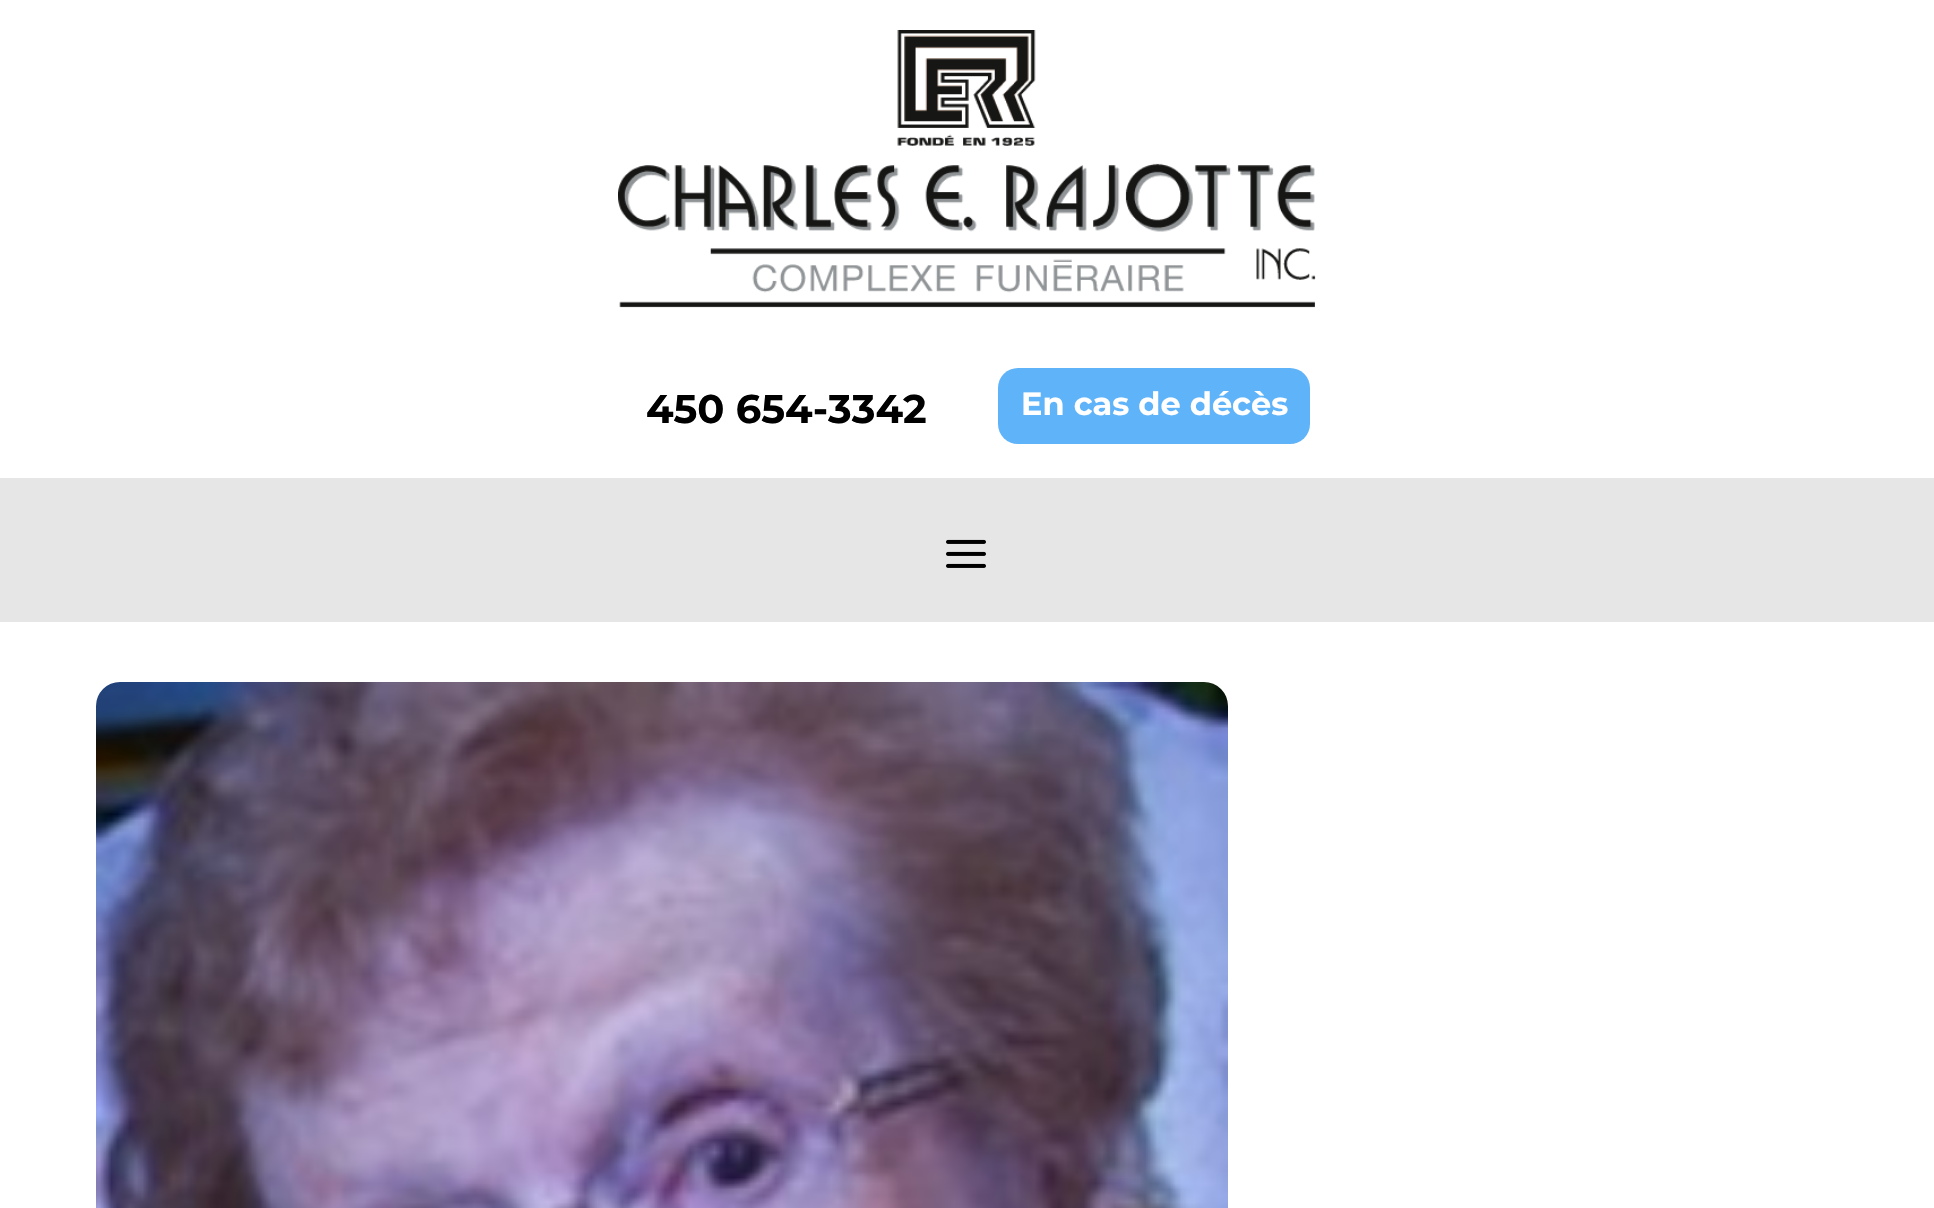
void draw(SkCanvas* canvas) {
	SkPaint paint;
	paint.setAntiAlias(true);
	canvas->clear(0xffffffff);
	canvas->drawImageRect(SkImages::DeferredFromEncodedData(SkData::MakeFromFileName("img1.png")), SkRect::MakeXYWH(618, 30, 698, 278), SkSamplingOptions());
	SkFont f1(fontMgr->matchFamilyStyle("Montserrat", SkFontStyle::Bold()), 40);
	f1.setSubpixel(true);
	paint.setColor(0xff000000);
	canvas->drawString("450 654-3342", 646, 423, f1, paint);
	paint.setColor(0xff5fb3f9);
	canvas->drawRoundRect(SkRect::MakeXYWH(998, 368, 312, 76), 20, 20, paint);
	SkFont f2(fontMgr->matchFamilyStyle("Montserrat", SkFontStyle::Bold()), 32);
	f2.setSubpixel(true);
	paint.setColor(0xffffffff);
	canvas->drawString("En cas de décès", 1021, 415, f2, paint);
	paint.setColor(0xffe6e6e6);
	canvas->drawRect(SkRect::MakeXYWH(0, 478, 1934, 144), paint);
	canvas->drawImageRect(SkImages::DeferredFromEncodedData(SkData::MakeFromFileName("img2.png")), SkRect::MakeXYWH(946, 539, 40, 29), SkSamplingOptions());
	canvas->drawImageRect(SkImages::DeferredFromEncodedData(SkData::MakeFromFileName("img3.png")), SkRect::MakeXYWH(96, 682, 1132, 526), SkSamplingOptions());
}
